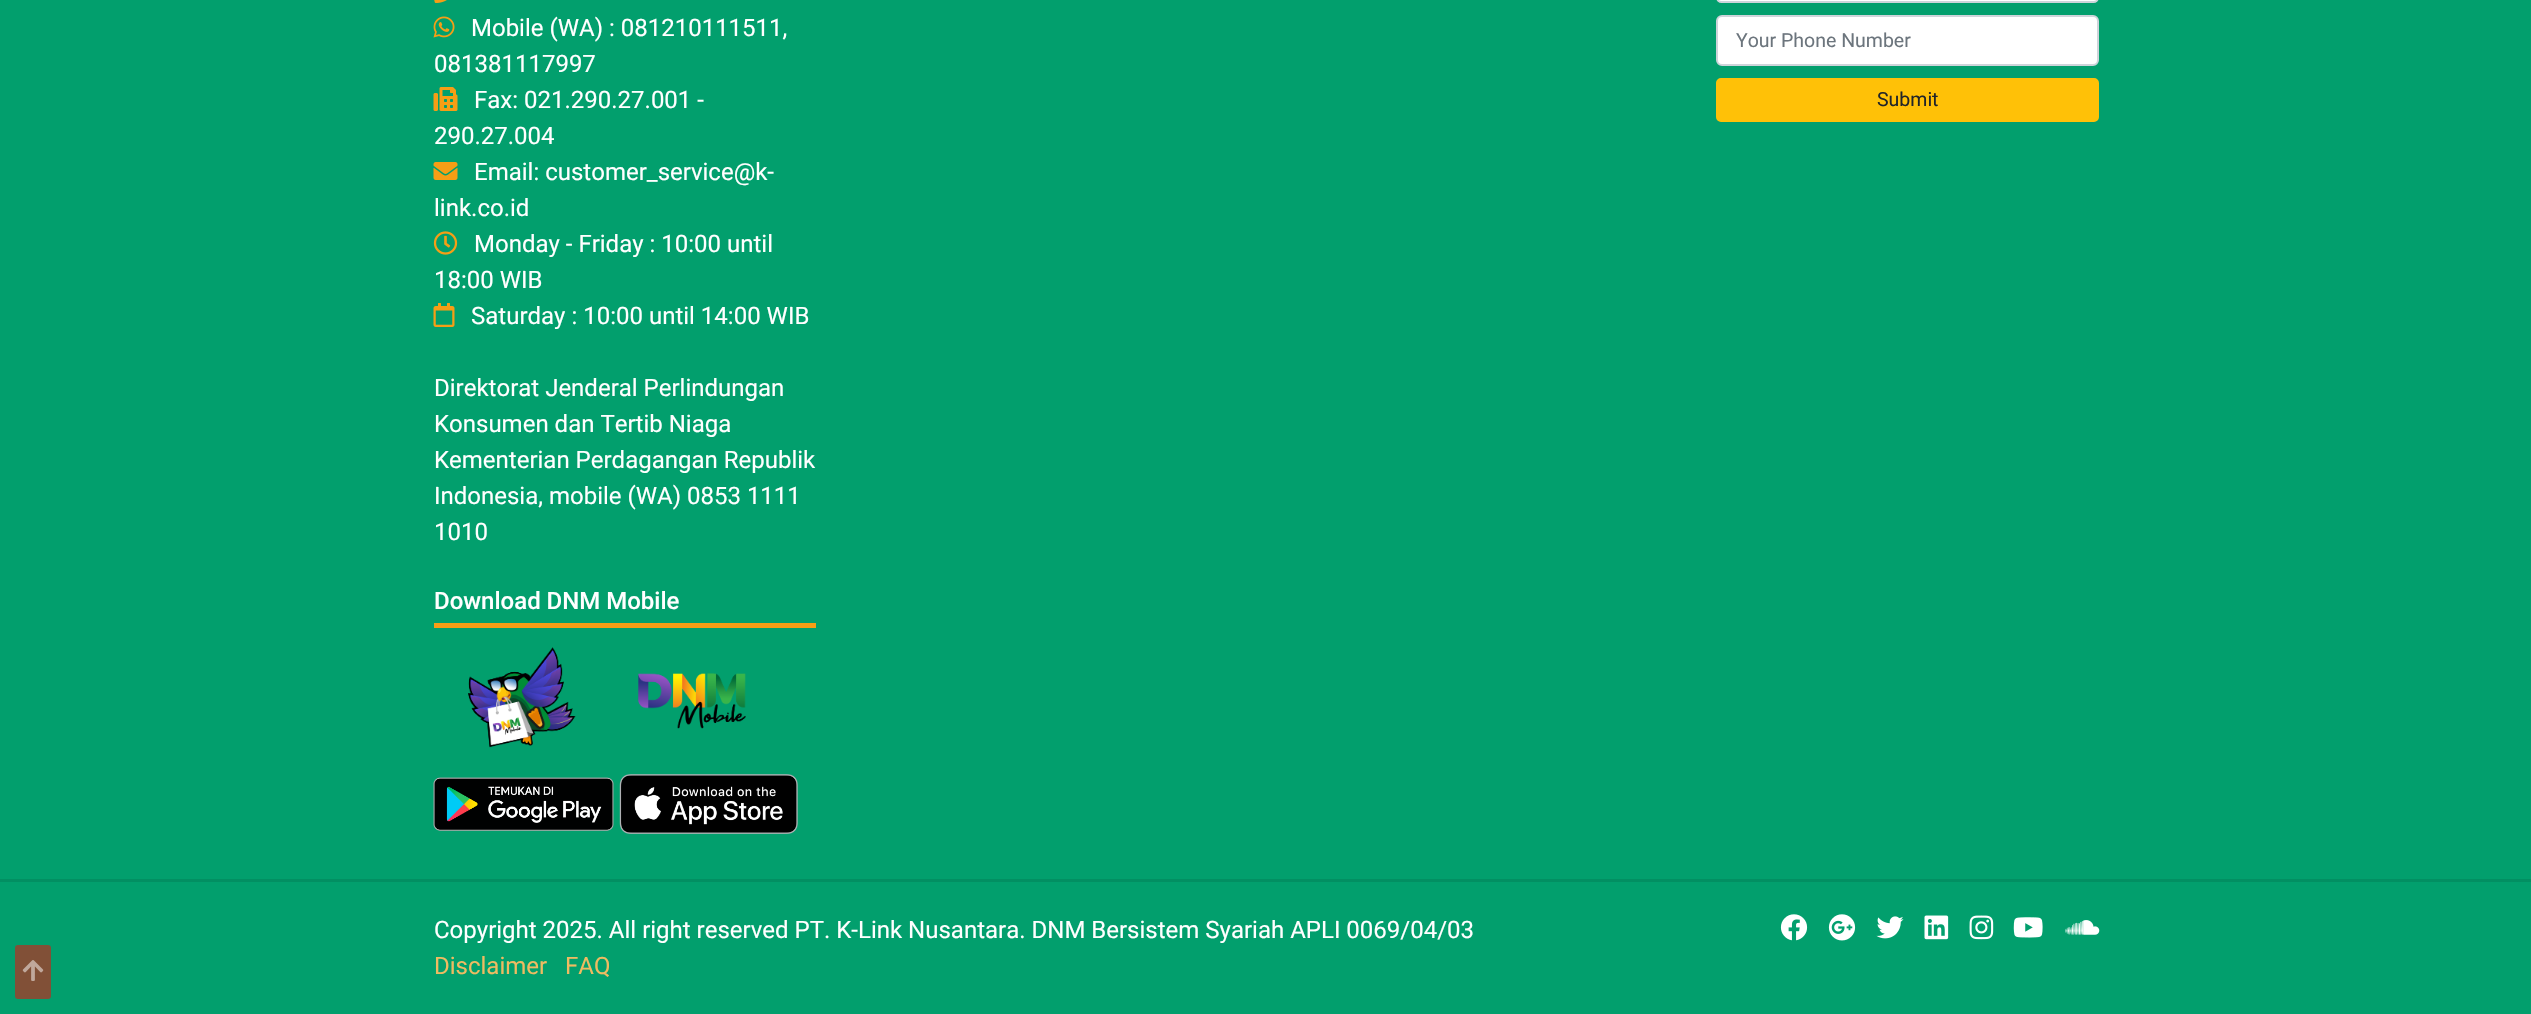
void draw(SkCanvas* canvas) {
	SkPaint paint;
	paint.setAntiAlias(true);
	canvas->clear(0xff029f6d);
	paint.setColor(0xff815037);
	canvas->drawRoundRect(SkRect::MakeXYWH(15, 945, 36, 54), 3, 3, paint);
	canvas->drawImageRect(SkImages::DeferredFromEncodedData(SkData::MakeFromFileName("img1.png")), SkRect::MakeXYWH(22, 960, 22, 21), SkSamplingOptions());
	canvas->drawImageRect(SkImages::DeferredFromEncodedData(SkData::MakeFromFileName("img2.png")), SkRect::MakeXYWH(434, 0, 13, 3), SkSamplingOptions());
	canvas->drawImageRect(SkImages::DeferredFromEncodedData(SkData::MakeFromFileName("img3.png")), SkRect::MakeXYWH(433, 16, 22, 22), SkSamplingOptions());
	SkFont f1(fontMgr->matchFamilyStyle("Roboto", SkFontStyle::Normal()), 24);
	f1.setSubpixel(true);
	paint.setColor(0xffffffff);
	canvas->drawString("Mobile (WA) : 081210111511,", 471, 36, f1, paint);
	canvas->drawString("081381117997", 434, 72, f1, paint);
	canvas->drawImageRect(SkImages::DeferredFromEncodedData(SkData::MakeFromFileName("img4.png")), SkRect::MakeXYWH(433, 87, 25, 24), SkSamplingOptions());
	canvas->drawString("Fax: 021.290.27.001 -", 474, 108, f1, paint);
	canvas->drawString("290.27.004", 434, 144, f1, paint);
	canvas->drawImageRect(SkImages::DeferredFromEncodedData(SkData::MakeFromFileName("img5.png")), SkRect::MakeXYWH(433, 162, 25, 18), SkSamplingOptions());
	canvas->drawString("Email: customer_service@k-", 474, 180, f1, paint);
	canvas->drawString("link.co.id", 434, 216, f1, paint);
	canvas->drawImageRect(SkImages::DeferredFromEncodedData(SkData::MakeFromFileName("img6.png")), SkRect::MakeXYWH(433, 231, 25, 24), SkSamplingOptions());
	canvas->drawString("Monday - Friday : 10:00 until", 474, 252, f1, paint);
	canvas->drawString("18:00 WIB", 434, 288, f1, paint);
	canvas->drawImageRect(SkImages::DeferredFromEncodedData(SkData::MakeFromFileName("img7.png")), SkRect::MakeXYWH(433, 303, 22, 24), SkSamplingOptions());
	canvas->drawString("Saturday : 10:00 until 14:00 WIB", 471, 324, f1, paint);
	canvas->drawString("Direktorat Jenderal Perlindungan", 434, 396, f1, paint);
	canvas->drawString("Konsumen dan Tertib Niaga", 434, 432, f1, paint);
	canvas->drawString("Kementerian Perdagangan Republik", 434, 468, f1, paint);
	canvas->drawString("Indonesia, mobile (WA) 0853 1111", 434, 504, f1, paint);
	canvas->drawString("1010", 434, 540, f1, paint);
	paint.setColor(0xfff69e15);
	canvas->drawRect(SkRect::MakeXYWH(434, 623, 382, 5), paint);
	SkFont f2(fontMgr->matchFamilyStyle("Roboto", SkFontStyle(500, SkFontStyle::kNormal_Width, SkFontStyle::kUpright_Slant)), 24);
	f2.setSubpixel(true);
	paint.setColor(0xffffffff);
	canvas->drawString("Download DNM Mobile", 434, 609, f2, paint);
	canvas->drawImageRect(SkImages::DeferredFromEncodedData(SkData::MakeFromFileName("img8.png")), SkRect::MakeXYWH(468, 647, 108, 101), SkSamplingOptions());
	canvas->drawImageRect(SkImages::DeferredFromEncodedData(SkData::MakeFromFileName("img9.png")), SkRect::MakeXYWH(638, 673, 108, 56), SkSamplingOptions());
	canvas->drawImageRect(SkImages::DeferredFromEncodedData(SkData::MakeFromFileName("img10.png")), SkRect::MakeXYWH(433, 777, 181, 54), SkSamplingOptions());
	canvas->drawImageRect(SkImages::DeferredFromEncodedData(SkData::MakeFromFileName("img11.png")), SkRect::MakeXYWH(619, 774, 179, 60), SkSamplingOptions());
	canvas->drawRoundRect(SkRect::MakeXYWH(1718, -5, 379, 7), 5, 5, paint);
	paint.setStroke(true);
	paint.setStrokeWidth(2);
	paint.setColor(0xffced4da);
	canvas->drawRoundRect(SkRect::MakeXYWH(1717, -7, 381, 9), 5, 5, paint);
	paint.setStroke(false);
	paint.setColor(0xffffffff);
	canvas->drawRoundRect(SkRect::MakeXYWH(1717, 16, 381, 49), 5, 5, paint);
	paint.setStroke(true);
	paint.setColor(0xffced4da);
	canvas->drawRoundRect(SkRect::MakeXYWH(1717, 16, 381, 49), 5, 5, paint);
	SkFont f3(fontMgr->matchFamilyStyle("Roboto", SkFontStyle::Normal()), 19.5);
	f3.setSubpixel(true);
	paint.setStroke(false);
	paint.setColor(0xff6c757d);
	canvas->drawString("Your Phone Number", 1736, 47, f3, paint);
	paint.setColor(0xffffc107);
	canvas->drawRoundRect(SkRect::MakeXYWH(1717, 79, 381, 42), 4, 4, paint);
	paint.setStroke(true);
	canvas->drawRoundRect(SkRect::MakeXYWH(1717, 79, 381, 42), 4, 4, paint);
	paint.setStroke(false);
	paint.setColor(0xff212529);
	canvas->drawString("Submit", 1877, 106, f3, paint);
	paint.setColor(0xff028f62);
	canvas->drawRect(SkRect::MakeXYWH(0, 879, 2531, 3), paint);
	paint.setColor(0xffffffff);
	canvas->drawString("Copyright 2025. All right reserved PT. K-Link Nusantara. DNM Bersistem Syariah APLI 0069/04/03", 434, 938, f1, paint);
	paint.setColor(0xffefbb61);
	canvas->drawString("Disclaimer", 434, 974, f1, paint);
	canvas->drawString("FAQ", 565, 974, f1, paint);
	canvas->drawImageRect(SkImages::DeferredFromEncodedData(SkData::MakeFromFileName("img12.png")), SkRect::MakeXYWH(1780, 914, 28, 27), SkSamplingOptions());
	canvas->drawImageRect(SkImages::DeferredFromEncodedData(SkData::MakeFromFileName("img13.png")), SkRect::MakeXYWH(1828, 914, 28, 27), SkSamplingOptions());
	canvas->drawImageRect(SkImages::DeferredFromEncodedData(SkData::MakeFromFileName("img14.png")), SkRect::MakeXYWH(1876, 916, 28, 23), SkSamplingOptions());
	canvas->drawImageRect(SkImages::DeferredFromEncodedData(SkData::MakeFromFileName("img15.png")), SkRect::MakeXYWH(1924, 915, 25, 25), SkSamplingOptions());
	canvas->drawImageRect(SkImages::DeferredFromEncodedData(SkData::MakeFromFileName("img16.png")), SkRect::MakeXYWH(1969, 915, 25, 25), SkSamplingOptions());
	canvas->drawImageRect(SkImages::DeferredFromEncodedData(SkData::MakeFromFileName("img17.png")), SkRect::MakeXYWH(2013, 917, 30, 21), SkSamplingOptions());
	canvas->drawImageRect(SkImages::DeferredFromEncodedData(SkData::MakeFromFileName("img18.png")), SkRect::MakeXYWH(2065, 920, 35, 15), SkSamplingOptions());
}
